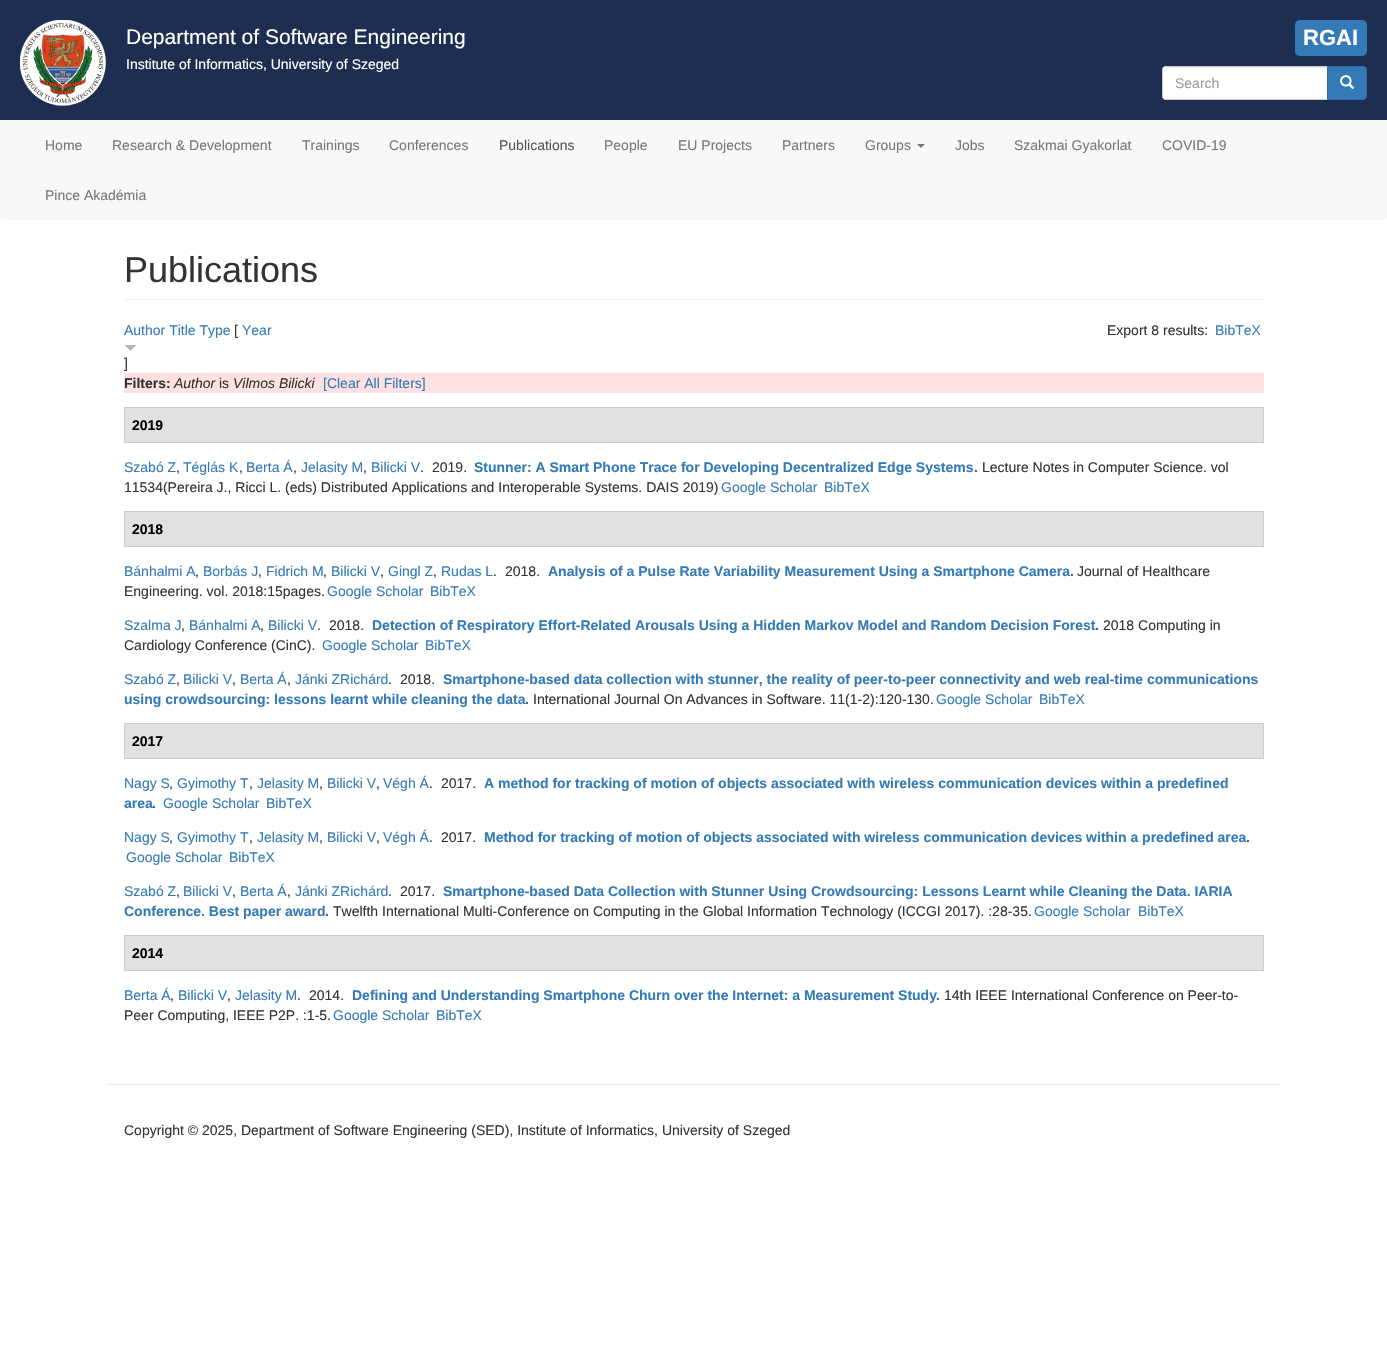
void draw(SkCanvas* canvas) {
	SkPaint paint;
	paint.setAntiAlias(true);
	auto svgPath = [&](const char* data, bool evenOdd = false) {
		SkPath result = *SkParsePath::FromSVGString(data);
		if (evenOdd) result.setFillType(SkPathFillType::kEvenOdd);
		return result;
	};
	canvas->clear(0xffffffff);
	paint.setColor(0xfff8f8f8);
	canvas->drawRoundRect(SkRect::MakeXYWH(0, 0, 1387, 220), 4, 4, paint);
	paint.setColor(0xff1e2e50);
	canvas->drawRect(SkRect::MakeXYWH(0, 0, 1387, 120), paint);
	canvas->drawImageRect(SkImages::DeferredFromEncodedData(SkData::MakeFromFileName("img1.png")), SkRect::MakeXYWH(20, 20, 86, 86), SkSamplingOptions());
	SkFont f1(fontMgr->matchFamilyStyle("Liberation Sans", SkFontStyle::Normal()), 21);
	f1.setSubpixel(true);
	paint.setColor(0xffffffff);
	canvas->drawString("Department of Software Engineering", 126, 44, f1, paint);
	SkFont f2(fontMgr->matchFamilyStyle("Liberation Sans", SkFontStyle::Normal()), 14);
	f2.setSubpixel(true);
	canvas->drawString("Institute of Informatics, University of Szeged", 126, 69, f2, paint);
	paint.setColor(0xff337ab7);
	canvas->drawRoundRect(SkRect::MakeXYWH(1295, 20, 72, 36), 5, 5, paint);
	SkFont f3(fontMgr->matchFamilyStyle("Liberation Sans", SkFontStyle::Bold()), 22);
	f3.setSubpixel(true);
	paint.setColor(0xffffffff);
	canvas->drawString("RGAI", 1303, 45, f3, paint);
	canvas->drawPath(svgPath("M1166 66H1328V100H1166C1164 100 1162 98 1162 96V70C1162 68 1164 66 1166 66Z"), paint);
	paint.setColor(0xffececec);
	canvas->drawPath(svgPath("M1166 68H1327V67H1166C1164 67 1163 69 1163 71C1163 69 1164 68 1166 68Z"), paint);
	paint.setStroke(true);
	paint.setStrokeWidth(1);
	paint.setColor(0xffcccccc);
	canvas->drawPath(svgPath("M1166 66.5H1327.5V99.5H1166C1164 99.5 1162.5 98 1162.5 96V70C1162.5 68 1164 66.5 1166 66.5Z"), paint);
	paint.setStroke(false);
	paint.setColor(0xff999999);
	canvas->drawString("Search", 1175, 88, f2, paint);
	paint.setColor(0xff337ab7);
	canvas->drawPath(svgPath("M1327.5 66.5H1363C1365 66.5 1366.5 68 1366.5 70V96C1366.5 98 1365 99.5 1363 99.5H1327.5Z"), paint);
	paint.setStroke(true);
	paint.setColor(0xff2e6da4);
	canvas->drawPath(svgPath("M1327.5 66.5H1363C1365 66.5 1366.5 68 1366.5 70V96C1366.5 98 1365 99.5 1363 99.5H1327.5Z"), paint);
	canvas->drawImageRect(SkImages::DeferredFromEncodedData(SkData::MakeFromFileName("img2.png")), SkRect::MakeXYWH(1340, 75, 15, 14), SkSamplingOptions());
	paint.setStroke(false);
	paint.setColor(0xff777777);
	canvas->drawString("Home", 45, 150, f2, paint);
	canvas->drawString("Research & Development", 112, 150, f2, paint);
	canvas->drawString("Trainings", 302, 150, f2, paint);
	canvas->drawString("Conferences", 389, 150, f2, paint);
	paint.setColor(0xff555555);
	canvas->drawString("Publications", 499, 150, f2, paint);
	paint.setColor(0xff777777);
	canvas->drawString("People", 604, 150, f2, paint);
	canvas->drawString("EU Projects", 678, 150, f2, paint);
	canvas->drawString("Partners", 782, 150, f2, paint);
	canvas->drawString("Groups", 865, 150, f2, paint);
	canvas->drawPath(svgPath("M917 144H925L921 148Z"), paint);
	canvas->drawString("Jobs", 955, 150, f2, paint);
	canvas->drawString("Szakmai Gyakorlat", 1014, 150, f2, paint);
	canvas->drawString("COVID-19", 1162, 150, f2, paint);
	canvas->drawString("Pince Akadémia", 45, 200, f2, paint);
	paint.setColor(0xffeeeeee);
	canvas->drawRect(SkRect::MakeXYWH(124, 299, 1140, 1), paint);
	SkFont f4(fontMgr->matchFamilyStyle("Liberation Sans", SkFontStyle::Normal()), 36);
	f4.setSubpixel(true);
	paint.setColor(0xff333333);
	canvas->drawString("Publications", 124, 282, f4, paint);
	paint.setColor(0xff337ab7);
	canvas->drawString("Author Title Type", 124, 335, f2, paint);
	paint.setColor(0xff333333);
	canvas->drawString("[", 234, 335, f2, paint);
	paint.setColor(0xff337ab7);
	canvas->drawString("Year", 242, 335, f2, paint);
	paint.setColor(0xff333333);
	canvas->drawString("Export 8 results:", 1107, 335, f2, paint);
	paint.setColor(0xff337ab7);
	canvas->drawString("BibTeX", 1215, 335, f2, paint);
	canvas->drawImageRect(SkImages::DeferredFromEncodedData(SkData::MakeFromFileName("img3.png")), SkRect::MakeXYWH(125, 345, 11, 6), SkSamplingOptions());
	paint.setColor(0xff333333);
	canvas->drawString("]", 124, 368, f2, paint);
	paint.setColor(0xffffe1e1);
	canvas->drawRect(SkRect::MakeXYWH(124, 373, 1140, 20), paint);
	SkFont f5(fontMgr->matchFamilyStyle("Liberation Sans", SkFontStyle::Bold()), 14);
	f5.setSubpixel(true);
	paint.setColor(0xff333333);
	canvas->drawString("Filters:", 124, 388, f5, paint);
	SkFont f6(fontMgr->matchFamilyStyle("Liberation Sans", SkFontStyle::Italic()), 14);
	f6.setSubpixel(true);
	canvas->drawString("Author", 174, 388, f6, paint);
	canvas->drawString("is", 219, 388, f2, paint);
	canvas->drawString("Vilmos Bilicki", 233, 388, f6, paint);
	paint.setColor(0xff337ab7);
	canvas->drawString("[Clear All Filters]", 323, 388, f2, paint);
	paint.setColor(0xffe1e1e1);
	canvas->drawRect(SkRect::MakeXYWH(124.5, 407.5, 1139, 35), paint);
	paint.setStroke(true);
	paint.setColor(0xffcccccc);
	canvas->drawRect(SkRect::MakeXYWH(124.5, 407.5, 1139, 35), paint);
	paint.setStroke(false);
	paint.setColor(0xff000000);
	canvas->drawString("2019", 132, 430, f5, paint);
	paint.setColor(0xff337ab7);
	canvas->drawString("Szabó Z", 124, 472, f2, paint);
	paint.setColor(0xff333333);
	canvas->drawString(",", 176, 472, f2, paint);
	paint.setColor(0xff337ab7);
	canvas->drawString("Téglás K", 183, 472, f2, paint);
	paint.setColor(0xff333333);
	canvas->drawString(",", 239, 472, f2, paint);
	paint.setColor(0xff337ab7);
	canvas->drawString("Berta Á", 246, 472, f2, paint);
	paint.setColor(0xff333333);
	canvas->drawString(",", 293, 472, f2, paint);
	paint.setColor(0xff337ab7);
	canvas->drawString("Jelasity M", 301, 472, f2, paint);
	paint.setColor(0xff333333);
	canvas->drawString(",", 363, 472, f2, paint);
	paint.setColor(0xff337ab7);
	canvas->drawString("Bilicki V", 371, 472, f2, paint);
	paint.setColor(0xff333333);
	canvas->drawString(".", 420, 472, f2, paint);
	canvas->drawString("2019.", 432, 472, f2, paint);
	paint.setColor(0xff337ab7);
	canvas->drawString("Stunner: A Smart Phone Trace for Developing Decentralized Edge Systems", 474, 472, f5, paint);
	paint.setColor(0xff336599);
	canvas->drawString(".", 974, 472, f5, paint);
	paint.setColor(0xff333333);
	canvas->drawString("Lecture Notes in Computer Science. vol", 982, 472, f2, paint);
	canvas->drawString("11534(Pereira J., Ricci L. (eds) Distributed Applications and Interoperable Systems. DAIS 2019)", 124, 492, f2, paint);
	paint.setColor(0xff337ab7);
	canvas->drawString("Google Scholar", 721, 492, f2, paint);
	canvas->drawString("BibTeX", 824, 492, f2, paint);
	paint.setColor(0xffe1e1e1);
	canvas->drawRect(SkRect::MakeXYWH(124.5, 511.5, 1139, 35), paint);
	paint.setStroke(true);
	paint.setColor(0xffcccccc);
	canvas->drawRect(SkRect::MakeXYWH(124.5, 511.5, 1139, 35), paint);
	paint.setStroke(false);
	paint.setColor(0xff000000);
	canvas->drawString("2018", 132, 534, f5, paint);
	paint.setColor(0xff337ab7);
	canvas->drawString("Bánhalmi A", 124, 576, f2, paint);
	paint.setColor(0xff333333);
	canvas->drawString(",", 195, 576, f2, paint);
	paint.setColor(0xff337ab7);
	canvas->drawString("Borbás J", 203, 576, f2, paint);
	paint.setColor(0xff333333);
	canvas->drawString(",", 258, 576, f2, paint);
	paint.setColor(0xff337ab7);
	canvas->drawString("Fidrich M", 266, 576, f2, paint);
	paint.setColor(0xff333333);
	canvas->drawString(",", 323, 576, f2, paint);
	paint.setColor(0xff337ab7);
	canvas->drawString("Bilicki V", 331, 576, f2, paint);
	paint.setColor(0xff333333);
	canvas->drawString(",", 380, 576, f2, paint);
	paint.setColor(0xff337ab7);
	canvas->drawString("Gingl Z", 388, 576, f2, paint);
	paint.setColor(0xff333333);
	canvas->drawString(",", 433, 576, f2, paint);
	paint.setColor(0xff337ab7);
	canvas->drawString("Rudas L", 441, 576, f2, paint);
	paint.setColor(0xff333333);
	canvas->drawString(".", 493, 576, f2, paint);
	canvas->drawString("2018.", 505, 576, f2, paint);
	paint.setColor(0xff337ab7);
	canvas->drawString("Analysis of a Pulse Rate Variability Measurement Using a Smartphone Camera", 548, 576, f5, paint);
	paint.setColor(0xff336599);
	canvas->drawString(".", 1070, 576, f5, paint);
	paint.setColor(0xff333333);
	canvas->drawString("Journal of Healthcare", 1077, 576, f2, paint);
	canvas->drawString("Engineering. vol. 2018:15pages.", 124, 596, f2, paint);
	paint.setColor(0xff337ab7);
	canvas->drawString("Google Scholar", 327, 596, f2, paint);
	canvas->drawString("BibTeX", 430, 596, f2, paint);
	canvas->drawString("Szalma J", 124, 630, f2, paint);
	paint.setColor(0xff333333);
	canvas->drawString(",", 181, 630, f2, paint);
	paint.setColor(0xff337ab7);
	canvas->drawString("Bánhalmi A", 189, 630, f2, paint);
	paint.setColor(0xff333333);
	canvas->drawString(",", 260, 630, f2, paint);
	paint.setColor(0xff337ab7);
	canvas->drawString("Bilicki V", 268, 630, f2, paint);
	paint.setColor(0xff333333);
	canvas->drawString(".", 317, 630, f2, paint);
	canvas->drawString("2018.", 329, 630, f2, paint);
	paint.setColor(0xff337ab7);
	canvas->drawString("Detection of Respiratory Effort-Related Arousals Using a Hidden Markov Model and Random Decision Forest", 372, 630, f5, paint);
	paint.setColor(0xff336599);
	canvas->drawString(".", 1095, 630, f5, paint);
	paint.setColor(0xff333333);
	canvas->drawString("2018 Computing in", 1103, 630, f2, paint);
	canvas->drawString("Cardiology Conference (CinC).", 124, 650, f2, paint);
	paint.setColor(0xff337ab7);
	canvas->drawString("Google Scholar", 322, 650, f2, paint);
	canvas->drawString("BibTeX", 425, 650, f2, paint);
	canvas->drawString("Szabó Z", 124, 684, f2, paint);
	paint.setColor(0xff333333);
	canvas->drawString(",", 176, 684, f2, paint);
	paint.setColor(0xff337ab7);
	canvas->drawString("Bilicki V", 183, 684, f2, paint);
	paint.setColor(0xff333333);
	canvas->drawString(",", 232, 684, f2, paint);
	paint.setColor(0xff337ab7);
	canvas->drawString("Berta Á", 240, 684, f2, paint);
	paint.setColor(0xff333333);
	canvas->drawString(",", 287, 684, f2, paint);
	paint.setColor(0xff337ab7);
	canvas->drawString("Jánki ZRichárd", 295, 684, f2, paint);
	paint.setColor(0xff333333);
	canvas->drawString(".", 388, 684, f2, paint);
	canvas->drawString("2018.", 400, 684, f2, paint);
	paint.setColor(0xff337ab7);
	canvas->drawString("Smartphone-based data collection with stunner, the reality of peer-to-peer connectivity and web real-time communications", 443, 684, f5, paint);
	canvas->drawString("using crowdsourcing: lessons learnt while cleaning the data", 124, 704, f5, paint);
	paint.setColor(0xff336599);
	canvas->drawString(".", 525, 704, f5, paint);
	paint.setColor(0xff333333);
	canvas->drawString("International Journal On Advances in Software. 11(1-2):120-130.", 533, 704, f2, paint);
	paint.setColor(0xff337ab7);
	canvas->drawString("Google Scholar", 936, 704, f2, paint);
	canvas->drawString("BibTeX", 1039, 704, f2, paint);
	paint.setColor(0xffe1e1e1);
	canvas->drawRect(SkRect::MakeXYWH(124.5, 723.5, 1139, 35), paint);
	paint.setStroke(true);
	paint.setColor(0xffcccccc);
	canvas->drawRect(SkRect::MakeXYWH(124.5, 723.5, 1139, 35), paint);
	paint.setStroke(false);
	paint.setColor(0xff000000);
	canvas->drawString("2017", 132, 746, f5, paint);
	paint.setColor(0xff337ab7);
	canvas->drawString("Nagy S", 124, 788, f2, paint);
	paint.setColor(0xff333333);
	canvas->drawString(",", 169, 788, f2, paint);
	paint.setColor(0xff337ab7);
	canvas->drawString("Gyimothy T", 177, 788, f2, paint);
	paint.setColor(0xff333333);
	canvas->drawString(",", 249, 788, f2, paint);
	paint.setColor(0xff337ab7);
	canvas->drawString("Jelasity M", 257, 788, f2, paint);
	paint.setColor(0xff333333);
	canvas->drawString(",", 319, 788, f2, paint);
	paint.setColor(0xff337ab7);
	canvas->drawString("Bilicki V", 327, 788, f2, paint);
	paint.setColor(0xff333333);
	canvas->drawString(",", 376, 788, f2, paint);
	paint.setColor(0xff337ab7);
	canvas->drawString("Végh Á", 383, 788, f2, paint);
	paint.setColor(0xff333333);
	canvas->drawString(".", 429, 788, f2, paint);
	canvas->drawString("2017.", 441, 788, f2, paint);
	paint.setColor(0xff337ab7);
	canvas->drawString("A method for tracking of motion of objects associated with wireless communication devices within a predefined", 484, 788, f5, paint);
	canvas->drawString("area", 124, 808, f5, paint);
	paint.setColor(0xff336599);
	canvas->drawString(".", 152, 808, f5, paint);
	paint.setColor(0xff337ab7);
	canvas->drawString("Google Scholar", 163, 808, f2, paint);
	canvas->drawString("BibTeX", 266, 808, f2, paint);
	canvas->drawString("Nagy S", 124, 842, f2, paint);
	paint.setColor(0xff333333);
	canvas->drawString(",", 169, 842, f2, paint);
	paint.setColor(0xff337ab7);
	canvas->drawString("Gyimothy T", 177, 842, f2, paint);
	paint.setColor(0xff333333);
	canvas->drawString(",", 249, 842, f2, paint);
	paint.setColor(0xff337ab7);
	canvas->drawString("Jelasity M", 257, 842, f2, paint);
	paint.setColor(0xff333333);
	canvas->drawString(",", 319, 842, f2, paint);
	paint.setColor(0xff337ab7);
	canvas->drawString("Bilicki V", 327, 842, f2, paint);
	paint.setColor(0xff333333);
	canvas->drawString(",", 376, 842, f2, paint);
	paint.setColor(0xff337ab7);
	canvas->drawString("Végh Á", 383, 842, f2, paint);
	paint.setColor(0xff333333);
	canvas->drawString(".", 429, 842, f2, paint);
	canvas->drawString("2017.", 441, 842, f2, paint);
	paint.setColor(0xff337ab7);
	canvas->drawString("Method for tracking of motion of objects associated with wireless communication devices within a predefined area", 484, 842, f5, paint);
	paint.setColor(0xff336599);
	canvas->drawString(".", 1246, 842, f5, paint);
	paint.setColor(0xff337ab7);
	canvas->drawString("Google Scholar", 126, 862, f2, paint);
	canvas->drawString("BibTeX", 229, 862, f2, paint);
	canvas->drawString("Szabó Z", 124, 896, f2, paint);
	paint.setColor(0xff333333);
	canvas->drawString(",", 176, 896, f2, paint);
	paint.setColor(0xff337ab7);
	canvas->drawString("Bilicki V", 183, 896, f2, paint);
	paint.setColor(0xff333333);
	canvas->drawString(",", 232, 896, f2, paint);
	paint.setColor(0xff337ab7);
	canvas->drawString("Berta Á", 240, 896, f2, paint);
	paint.setColor(0xff333333);
	canvas->drawString(",", 287, 896, f2, paint);
	paint.setColor(0xff337ab7);
	canvas->drawString("Jánki ZRichárd", 295, 896, f2, paint);
	paint.setColor(0xff333333);
	canvas->drawString(".", 388, 896, f2, paint);
	canvas->drawString("2017.", 400, 896, f2, paint);
	paint.setColor(0xff337ab7);
	canvas->drawString("Smartphone-based Data Collection with Stunner Using Crowdsourcing: Lessons Learnt while Cleaning the Data. IARIA", 443, 896, f5, paint);
	canvas->drawString("Conference. Best paper award", 124, 916, f5, paint);
	paint.setColor(0xff336599);
	canvas->drawString(".", 325, 916, f5, paint);
	paint.setColor(0xff333333);
	canvas->drawString("Twelfth International Multi-Conference on Computing in the Global Information Technology (ICCGI 2017). :28-35.", 333, 916, f2, paint);
	paint.setColor(0xff337ab7);
	canvas->drawString("Google Scholar", 1034, 916, f2, paint);
	canvas->drawString("BibTeX", 1138, 916, f2, paint);
	paint.setColor(0xffe1e1e1);
	canvas->drawRect(SkRect::MakeXYWH(124.5, 935.5, 1139, 35), paint);
	paint.setStroke(true);
	paint.setColor(0xffcccccc);
	canvas->drawRect(SkRect::MakeXYWH(124.5, 935.5, 1139, 35), paint);
	paint.setStroke(false);
	paint.setColor(0xff000000);
	canvas->drawString("2014", 132, 958, f5, paint);
	paint.setColor(0xff337ab7);
	canvas->drawString("Berta Á", 124, 1000, f2, paint);
	paint.setColor(0xff333333);
	canvas->drawString(",", 170, 1000, f2, paint);
	paint.setColor(0xff337ab7);
	canvas->drawString("Bilicki V", 178, 1000, f2, paint);
	paint.setColor(0xff333333);
	canvas->drawString(",", 227, 1000, f2, paint);
	paint.setColor(0xff337ab7);
	canvas->drawString("Jelasity M", 235, 1000, f2, paint);
	paint.setColor(0xff333333);
	canvas->drawString(".", 297, 1000, f2, paint);
	canvas->drawString("2014.", 309, 1000, f2, paint);
	paint.setColor(0xff337ab7);
	canvas->drawString("Defining and Understanding Smartphone Churn over the Internet: a Measurement Study", 352, 1000, f5, paint);
	paint.setColor(0xff336599);
	canvas->drawString(".", 936, 1000, f5, paint);
	paint.setColor(0xff333333);
	canvas->drawString("14th IEEE International Conference on Peer-to-", 944, 1000, f2, paint);
	canvas->drawString("Peer Computing, IEEE P2P. :1-5.", 124, 1020, f2, paint);
	paint.setColor(0xff337ab7);
	canvas->drawString("Google Scholar", 333, 1020, f2, paint);
	canvas->drawString("BibTeX", 436, 1020, f2, paint);
	paint.setColor(0xffe5e5e5);
	canvas->drawRect(SkRect::MakeXYWH(109, 1084, 1170, 1), paint);
	paint.setColor(0xff333333);
	canvas->drawString("Copyright © 2025, Department of Software Engineering (SED), Institute of Informatics, University of Szeged", 124, 1135, f2, paint);
}
